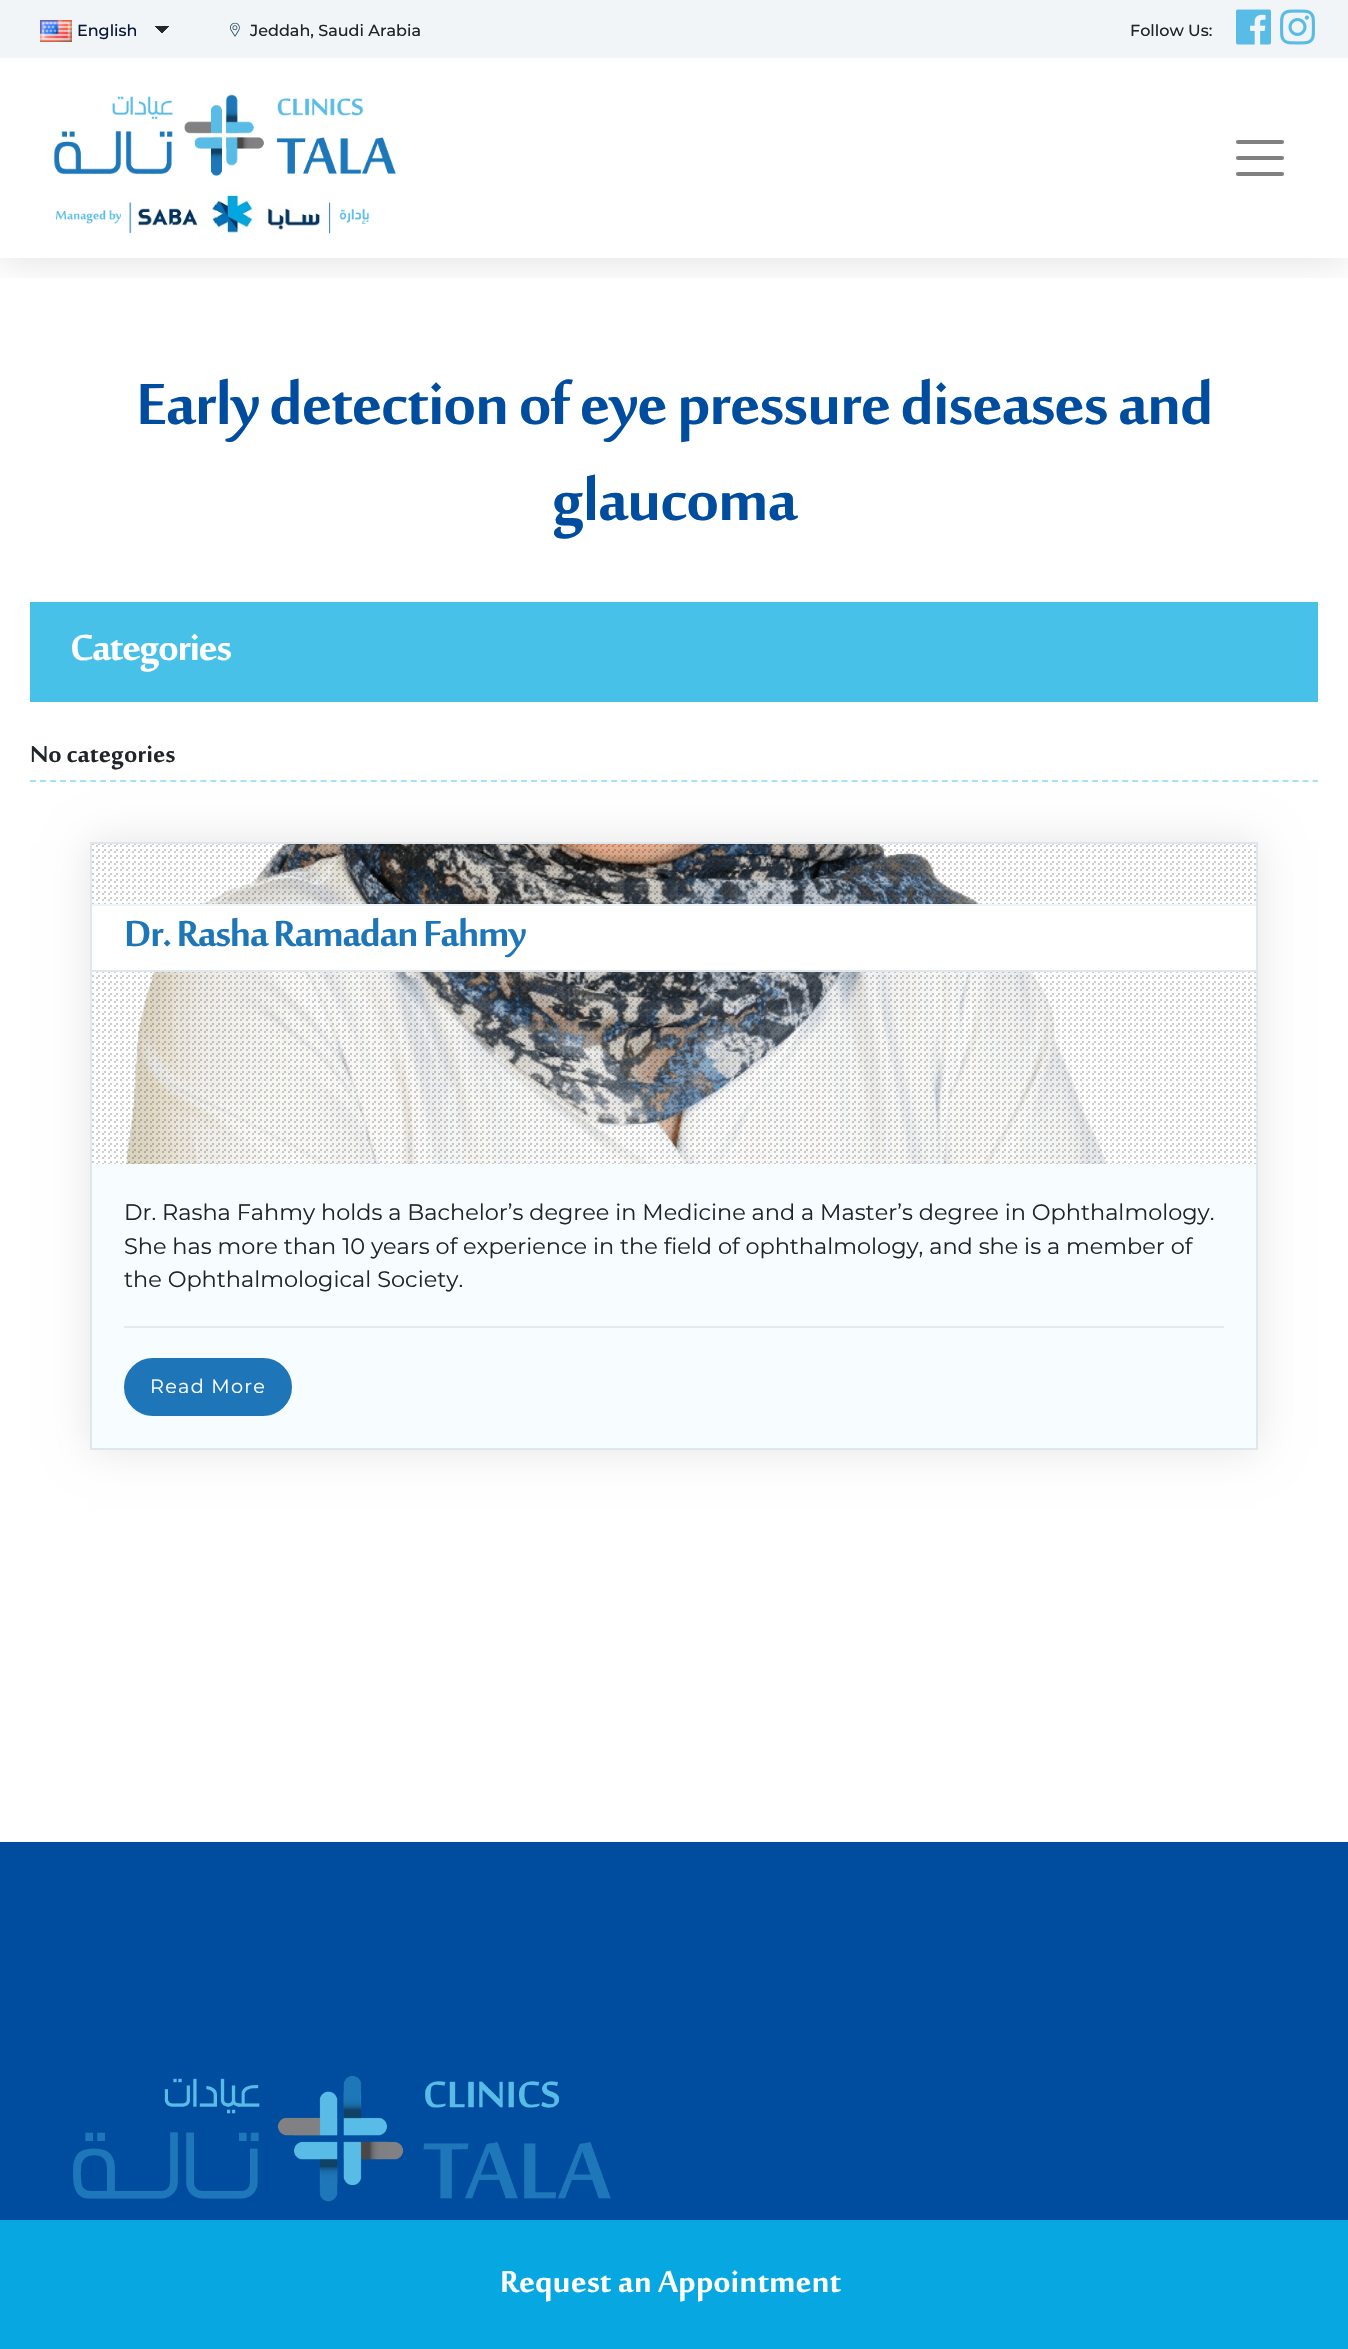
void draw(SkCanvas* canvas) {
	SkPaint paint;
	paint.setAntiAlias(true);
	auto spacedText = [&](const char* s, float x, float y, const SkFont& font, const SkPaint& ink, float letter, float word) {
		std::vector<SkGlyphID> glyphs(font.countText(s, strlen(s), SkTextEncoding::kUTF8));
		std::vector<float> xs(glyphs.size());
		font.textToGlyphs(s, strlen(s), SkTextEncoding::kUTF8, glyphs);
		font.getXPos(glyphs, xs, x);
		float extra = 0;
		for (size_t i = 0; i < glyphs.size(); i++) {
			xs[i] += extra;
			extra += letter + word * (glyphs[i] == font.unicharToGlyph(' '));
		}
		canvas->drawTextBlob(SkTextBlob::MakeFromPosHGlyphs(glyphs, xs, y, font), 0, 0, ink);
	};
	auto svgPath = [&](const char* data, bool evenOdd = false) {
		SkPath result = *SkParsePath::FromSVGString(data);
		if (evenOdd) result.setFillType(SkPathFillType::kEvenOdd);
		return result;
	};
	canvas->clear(0xffffffff);
	canvas->save();
	canvas->clipRect(SkRect::MakeXYWH(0, 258, 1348, 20));
	paint.setColor(0x21000000);
	paint.setMaskFilter(SkMaskFilter::MakeBlur(kNormal_SkBlurStyle, 20));
	canvas->drawRect(SkRect::MakeXYWH(0, 0, 1348, 258), paint);
	paint.setMaskFilter(nullptr);
	canvas->restore();
	paint.setColor(0xfff1f5f8);
	canvas->drawRect(SkRect::MakeXYWH(0, 0, 1348, 58), paint);
	{
		const SkColor colors[] = {0xff23282d, 0xfff1f5f8};
		const float stops[] = {0.5, 0.5};
		const SkPoint ends[] = {{162, 26}, {170, 34}};
		paint.setShader(SkGradientShader::MakeLinear(ends, colors, stops, 2, SkTileMode::kClamp));
		paint.setAlpha(255);
	}
	canvas->drawRect(SkRect::MakeXYWH(162, 26, 8, 7), paint);
	{
		const SkColor colors[] = {0xfff1f5f8, 0xff23282d};
		const float stops[] = {0.5, 0.5};
		const SkPoint ends[] = {{154, 34}, {162, 26}};
		paint.setShader(SkGradientShader::MakeLinear(ends, colors, stops, 2, SkTileMode::kClamp));
		paint.setAlpha(255);
	}
	canvas->drawRect(SkRect::MakeXYWH(154, 26, 8, 8), paint);
	canvas->drawImageRect(SkImages::DeferredFromEncodedData(SkData::MakeFromFileName("img1.png")), SkRect::MakeXYWH(40, 20, 32, 22), SkSamplingOptions());
	SkFont f1(fontMgr->matchFamilyStyle("Montserrat", SkFontStyle(500, SkFontStyle::kNormal_Width, SkFontStyle::kUpright_Slant)), 16);
	f1.setSubpixel(true);
	paint.setShader(nullptr);
	paint.setColor(0xff0b1739);
	canvas->drawString("English", 77, 36, f1, paint);
	canvas->drawImageRect(SkImages::DeferredFromEncodedData(SkData::MakeFromFileName("img2.png")), SkRect::MakeXYWH(230, 22, 10, 15), SkSamplingOptions());
	paint.setColor(0xff212529);
	canvas->drawString("Jeddah, Saudi Arabia", 250, 36, f1, paint);
	canvas->drawString("Follow Us:", 1130, 36, f1, paint);
	canvas->drawImageRect(SkImages::DeferredFromEncodedData(SkData::MakeFromFileName("img3.png")), SkRect::MakeXYWH(1236, 9, 35, 36), SkSamplingOptions());
	canvas->drawImageRect(SkImages::DeferredFromEncodedData(SkData::MakeFromFileName("img4.png")), SkRect::MakeXYWH(1280, 9, 35, 36), SkSamplingOptions());
	canvas->drawImageRect(SkImages::DeferredFromEncodedData(SkData::MakeFromFileName("img5.png")), SkRect::MakeXYWH(53, 94, 343, 140), SkSamplingOptions());
	paint.setStroke(true);
	paint.setStrokeWidth(4);
	paint.setStrokeCap(SkPaint::kRound_Cap);
	paint.setColor(0xff808080);
	canvas->drawPath(svgPath("M1238 142H1282M1238 158H1282M1238 174H1282"), paint);
	SkFont f2(fontMgr->matchFamilyStyle("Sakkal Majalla", SkFontStyle::Bold()), 80);
	f2.setSubpixel(true);
	paint.setStroke(false);
	paint.setColor(0xff004da0);
	spacedText("Early detection of eye pressure diseases and", 136, 424, f2, paint, -1.6, 0);
	spacedText("glaucoma", 552, 520, f2, paint, -1.6, 0);
	paint.setColor(0xff48c1e9);
	canvas->drawRect(SkRect::MakeXYWH(30, 602, 1288, 100), paint);
	SkFont f3(fontMgr->matchFamilyStyle("Sakkal Majalla", SkFontStyle::Bold()), 50);
	f3.setSubpixel(true);
	paint.setColor(0xffffffff);
	spacedText("Categories", 70, 660, f3, paint, -1.6, 0);
	paint.setStroke(true);
	paint.setStrokeWidth(2);
	paint.setStrokeCap(SkPaint::kButt_Cap);
	paint.setColor(0xffa6e1f5);
	paint.setPathEffect(SkDashPathEffect::Make({{6, 4.02f}}, 0));
	canvas->drawPath(svgPath("M30 781H1318"), paint);
	paint.setPathEffect(nullptr);
	SkFont f4(fontMgr->matchFamilyStyle("Sakkal Majalla", SkFontStyle::Bold()), 32);
	f4.setSubpixel(true);
	paint.setStroke(false);
	paint.setColor(0xff212529);
	canvas->drawString("No categories", 30, 762, f4, paint);
	canvas->save();
	canvas->clipPath(svgPath("M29 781H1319V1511H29ZM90 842H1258V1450H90Z", true), true);
	paint.setColor(0x1a000000);
	paint.setMaskFilter(SkMaskFilter::MakeBlur(kNormal_SkBlurStyle, 20));
	canvas->drawRect(SkRect::MakeXYWH(90, 842, 1168, 608), paint);
	paint.setMaskFilter(nullptr);
	canvas->restore();
	paint.setStroke(true);
	paint.setColor(0xffe0e7ec);
	canvas->drawRect(SkRect::MakeXYWH(91, 843, 1166, 606), paint);
	canvas->drawImageRect(SkImages::DeferredFromEncodedData(SkData::MakeFromFileName("img7.png")), SkRect::MakeXYWH(126, 844, 981, 320), SkSamplingOptions());
	canvas->drawImageRect(SkImages::DeferredFromEncodedData(SkData::MakeFromFileName("img8.png")), SkRect::MakeXYWH(126, 844, 981, 320), SkSamplingOptions());
	canvas->drawImageRect(SkImages::DeferredFromEncodedData(SkData::MakeFromFileName("img6.png")), SkRect::MakeXYWH(92, 844, 1164, 320), SkSamplingOptions());
	paint.setStroke(false);
	paint.setColor(0xffffffff);
	canvas->drawRect(SkRect::MakeXYWH(92, 906, 1164, 64), paint);
	paint.setColor(0xffedf4f9);
	canvas->drawRect(SkRect::MakeXYWH(92, 904, 1164, 2), paint);
	paint.setColor(0xffdfe7ec);
	canvas->drawRect(SkRect::MakeXYWH(92, 970, 1164, 2), paint);
	paint.setColor(0xff1e76b9);
	spacedText("Dr. Rasha Ramadan Fahmy", 124, 946, f3, paint, -1.6, 0);
	paint.setColor(0xfff7fcff);
	canvas->drawRect(SkRect::MakeXYWH(92, 1164, 1164, 284), paint);
	SkFont f5(fontMgr->matchFamilyStyle("Montserrat", SkFontStyle::Normal()), 22.4);
	f5.setSubpixel(true);
	paint.setColor(0xff212529);
	canvas->drawString("Dr. Rasha Fahmy holds a Bachelor’s degree in Medicine and a Master’s degree in Ophthalmology.", 124, 1220, f5, paint);
	canvas->drawString("She has more than 10 years of experience in the field of ophthalmology, and she is a member of", 124, 1254, f5, paint);
	canvas->drawString("the Ophthalmological Society.", 124, 1287, f5, paint);
	paint.setColor(0xffe6eaed);
	canvas->drawRect(SkRect::MakeXYWH(124, 1326, 1100, 2), paint);
	paint.setColor(0xff1e76b9);
	canvas->drawRoundRect(SkRect::MakeXYWH(125, 1359, 166, 56), 28, 28, paint);
	paint.setStroke(true);
	canvas->drawRoundRect(SkRect::MakeXYWH(125, 1359, 166, 56), 28, 28, paint);
	SkFont f6(fontMgr->matchFamilyStyle("Montserrat", SkFontStyle::Normal()), 19.25);
	f6.setSubpixel(true);
	paint.setStroke(false);
	paint.setColor(0xffffffff);
	spacedText("Read More", 150, 1393, f6, paint, 1.25, 0);
	paint.setColor(0xff004da0);
	canvas->drawRect(SkRect::MakeXYWH(0, 1842, 1348, 378), paint);
	canvas->drawImageRect(SkImages::DeferredFromEncodedData(SkData::MakeFromFileName("img9.png")), SkRect::MakeXYWH(73, 2076, 538, 126), SkSamplingOptions());
	paint.setColor(0xff07a8e1);
	canvas->drawRect(SkRect::MakeXYWH(0, 2220, 1348, 129), paint);
	SkFont f7(fontMgr->matchFamilyStyle("Sakkal Majalla", SkFontStyle::Bold()), 41.5);
	f7.setSubpixel(true);
	paint.setColor(0xffffffff);
	canvas->drawString("Request an Appointment", 500, 2292, f7, paint);
}
